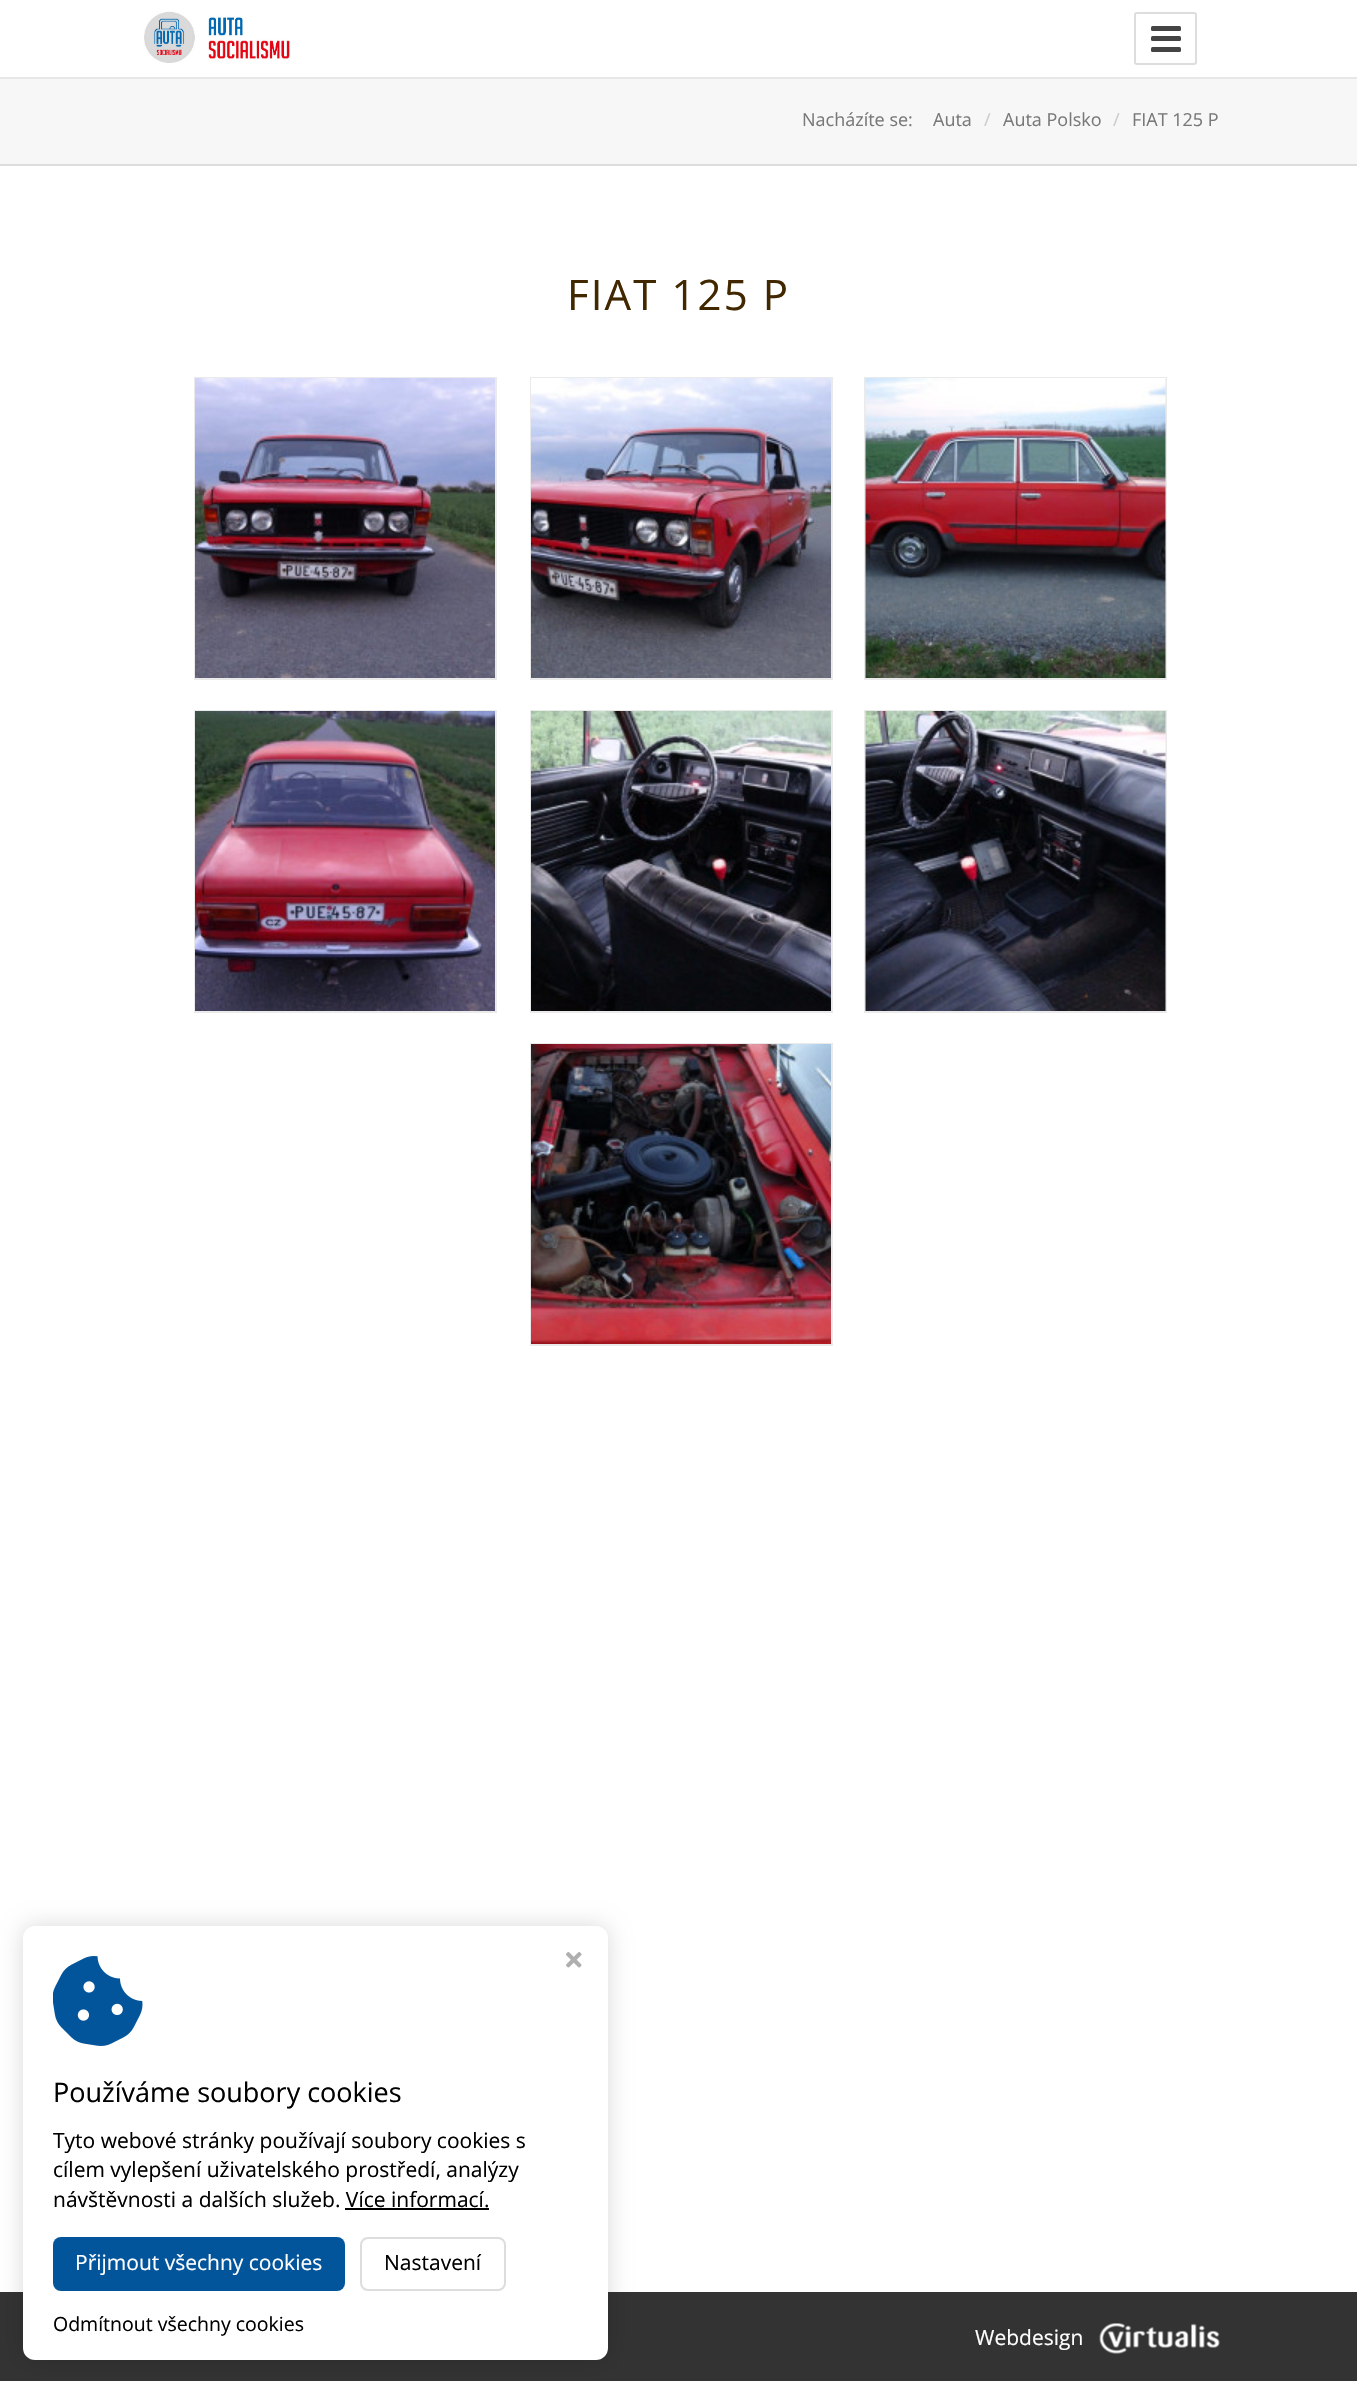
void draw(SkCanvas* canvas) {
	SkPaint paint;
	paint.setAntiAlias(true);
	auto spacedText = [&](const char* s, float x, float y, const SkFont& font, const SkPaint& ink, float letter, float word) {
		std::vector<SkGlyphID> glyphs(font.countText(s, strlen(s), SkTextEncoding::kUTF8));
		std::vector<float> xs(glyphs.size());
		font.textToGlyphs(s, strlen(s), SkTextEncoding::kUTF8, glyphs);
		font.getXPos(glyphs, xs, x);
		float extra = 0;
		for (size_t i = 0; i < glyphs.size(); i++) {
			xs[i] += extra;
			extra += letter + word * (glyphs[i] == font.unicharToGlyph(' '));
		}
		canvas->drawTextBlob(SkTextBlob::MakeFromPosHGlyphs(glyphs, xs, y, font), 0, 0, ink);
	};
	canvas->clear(0xffffffff);
	paint.setColor(0xffe7e7e7);
	canvas->drawRect(SkRect::MakeXYWH(0, 77, 1357, 2), paint);
	canvas->drawImageRect(SkImages::DeferredFromEncodedData(SkData::MakeFromFileName("img1.png")), SkRect::MakeXYWH(144, 11, 146, 52), SkSamplingOptions());
	paint.setStroke(true);
	paint.setStrokeWidth(2);
	paint.setColor(0xffdddddd);
	canvas->drawRoundRect(SkRect::MakeXYWH(1135, 13, 61, 51), 2, 2, paint);
	paint.setStroke(false);
	paint.setColor(0xff444444);
	canvas->drawRoundRect(SkRect::MakeXYWH(1151, 26, 30, 5), 1.5, 1.5, paint);
	canvas->drawRoundRect(SkRect::MakeXYWH(1151, 36, 30, 5), 1.5, 1.5, paint);
	canvas->drawRoundRect(SkRect::MakeXYWH(1151, 47, 30, 5), 1.5, 1.5, paint);
	paint.setColor(0xfff7f7f7);
	canvas->drawRect(SkRect::MakeXYWH(0, 79, 1357, 85), paint);
	paint.setColor(0xffdddddd);
	canvas->drawRect(SkRect::MakeXYWH(0, 164, 1357, 2), paint);
	SkFont f1(fontMgr->matchFamilyStyle("Open Sans", SkFontStyle::Normal()), 18);
	f1.setSubpixel(true);
	paint.setColor(0xff797979);
	canvas->drawString("Nacházíte se:", 802, 126, f1, paint);
	canvas->drawString("Auta", 933, 126, f1, paint);
	paint.setColor(0xffcccccc);
	canvas->drawString("/", 984, 126, f1, paint);
	paint.setColor(0xff797979);
	canvas->drawString("Auta Polsko", 1003, 126, f1, paint);
	paint.setColor(0xffcccccc);
	canvas->drawString("/", 1113, 126, f1, paint);
	paint.setColor(0xff797979);
	canvas->drawString("FIAT 125 P", 1132, 126, f1, paint);
	SkFont f2(fontMgr->matchFamilyStyle("Open Sans", SkFontStyle::Normal()), 42);
	f2.setSubpixel(true);
	paint.setColor(0xff412800);
	spacedText("FIAT 125 P", 567, 310, f2, paint, 2.1, 0);
	paint.setStroke(true);
	paint.setColor(0xffeaeaea);
	canvas->drawRect(SkRect::MakeXYWH(195, 378, 301, 301), paint);
	canvas->drawImageRect(SkImages::DeferredFromEncodedData(SkData::MakeFromFileName("img2.png")), SkRect::MakeXYWH(195, 378, 300, 300), SkSamplingOptions());
	canvas->drawRect(SkRect::MakeXYWH(531, 378, 301, 301), paint);
	canvas->drawImageRect(SkImages::DeferredFromEncodedData(SkData::MakeFromFileName("img3.png")), SkRect::MakeXYWH(531, 378, 300, 300), SkSamplingOptions());
	canvas->drawRect(SkRect::MakeXYWH(865, 378, 301, 301), paint);
	canvas->drawImageRect(SkImages::DeferredFromEncodedData(SkData::MakeFromFileName("img4.png")), SkRect::MakeXYWH(865, 378, 301, 300), SkSamplingOptions());
	canvas->drawRect(SkRect::MakeXYWH(195, 711, 301, 301), paint);
	canvas->drawImageRect(SkImages::DeferredFromEncodedData(SkData::MakeFromFileName("img5.png")), SkRect::MakeXYWH(195, 711, 300, 300), SkSamplingOptions());
	canvas->drawRect(SkRect::MakeXYWH(531, 711, 301, 301), paint);
	canvas->drawImageRect(SkImages::DeferredFromEncodedData(SkData::MakeFromFileName("img6.png")), SkRect::MakeXYWH(531, 711, 300, 300), SkSamplingOptions());
	canvas->drawRect(SkRect::MakeXYWH(865, 711, 301, 301), paint);
	canvas->drawImageRect(SkImages::DeferredFromEncodedData(SkData::MakeFromFileName("img7.png")), SkRect::MakeXYWH(865, 711, 301, 300), SkSamplingOptions());
	canvas->drawRect(SkRect::MakeXYWH(531, 1044, 301, 301), paint);
	canvas->drawImageRect(SkImages::DeferredFromEncodedData(SkData::MakeFromFileName("img8.png")), SkRect::MakeXYWH(531, 1044, 300, 300), SkSamplingOptions());
	paint.setStroke(false);
	paint.setColor(0xff333333);
	canvas->drawRect(SkRect::MakeXYWH(0, 2292, 1357, 89), paint);
	paint.setColor(0x26000000);
	paint.setMaskFilter(SkMaskFilter::MakeBlur(kNormal_SkBlurStyle, 11));
	canvas->drawRoundRect(SkRect::MakeXYWH(23, 1926, 585, 434), 12, 12, paint);
	paint.setMaskFilter(nullptr);
	paint.setColor(0xffffffff);
	canvas->drawRoundRect(SkRect::MakeXYWH(23, 1926, 585, 434), 12, 12, paint);
	canvas->drawImageRect(SkImages::DeferredFromEncodedData(SkData::MakeFromFileName("img9.png")), SkRect::MakeXYWH(53, 1956, 90, 90), SkSamplingOptions());
	canvas->drawImageRect(SkImages::DeferredFromEncodedData(SkData::MakeFromFileName("img10.png")), SkRect::MakeXYWH(566, 1952, 16, 16), SkSamplingOptions());
	SkFont f3(fontMgr->matchFamilyStyle("Open Sans", SkFontStyle::Normal()), 27);
	f3.setSubpixel(true);
	paint.setColor(0xff000000);
	canvas->drawString("Používáme soubory cookies", 53, 2102, f3, paint);
	SkFont f4(fontMgr->matchFamilyStyle("Open Sans", SkFontStyle::Normal()), 21);
	f4.setSubpixel(true);
	canvas->drawString("Tyto webové stránky používají soubory cookies s", 53, 2148, f4, paint);
	canvas->drawString("cílem vylepšení uživatelského prostředí, analýzy", 53, 2177, f4, paint);
	canvas->drawString("návštěvnosti a dalších služeb. Více informací.", 53, 2207, f4, paint);
	canvas->drawRect(SkRect::MakeXYWH(345, 2208, 144, 2), paint);
	paint.setColor(0xff02549b);
	canvas->drawRoundRect(SkRect::MakeXYWH(53, 2237, 292, 54), 8, 8, paint);
	paint.setColor(0xffffffff);
	canvas->drawString("Přijmout všechny cookies", 75, 2270, f4, paint);
	paint.setStroke(true);
	paint.setColor(0xffdddddd);
	canvas->drawRoundRect(SkRect::MakeXYWH(361, 2238, 144, 52), 7, 7, paint);
	paint.setStroke(false);
	paint.setColor(0xff000000);
	canvas->drawString("Nastavení", 384, 2270, f4, paint);
	SkFont f5(fontMgr->matchFamilyStyle("Open Sans", SkFontStyle::Normal()), 19.5);
	f5.setSubpixel(true);
	canvas->drawString("Odmítnout všechny cookies", 53, 2331, f5, paint);
	paint.setColor(0xffffffff);
	canvas->drawString("Webdesign", 975, 2345, f4, paint);
	canvas->drawImageRect(SkImages::DeferredFromEncodedData(SkData::MakeFromFileName("img11.png")), SkRect::MakeXYWH(1099, 2323, 121, 31), SkSamplingOptions());
}
